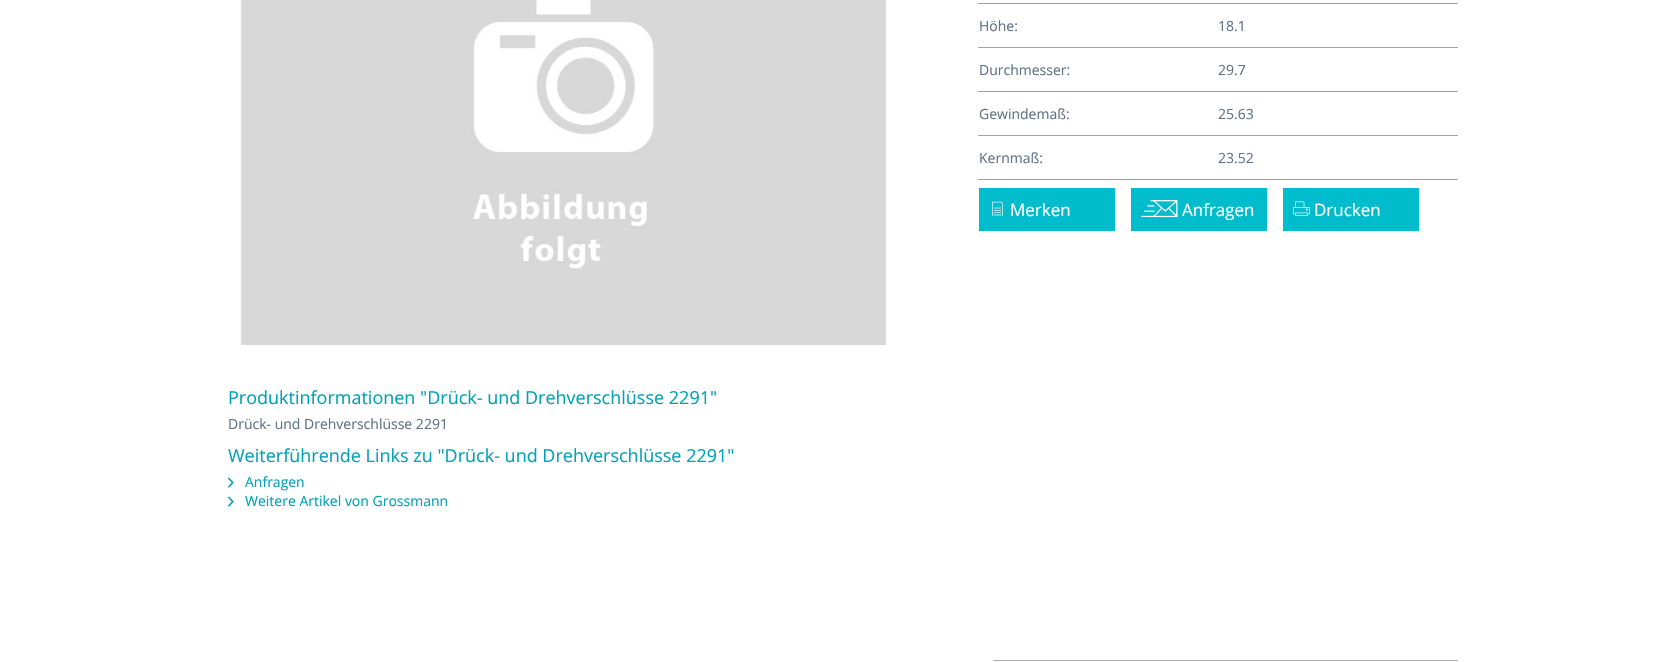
void draw(SkCanvas* canvas) {
	SkPaint paint;
	paint.setAntiAlias(true);
	canvas->clear(0xffffffff);
	paint.setColor(0xffa2a2a1);
	canvas->drawRect(SkRect::MakeXYWH(978, 3, 480, 1), paint);
	SkFont f1(fontMgr->matchFamilyStyle("Open Sans", SkFontStyle::Normal()), 14);
	f1.setSubpixel(true);
	paint.setColor(0xff5f7285);
	canvas->drawString("Höhe:", 979, 31, f1, paint);
	canvas->drawString("18.1", 1218, 31, f1, paint);
	paint.setColor(0xffa2a2a1);
	canvas->drawRect(SkRect::MakeXYWH(978, 47, 480, 1), paint);
	paint.setColor(0xff5f7285);
	canvas->drawString("Durchmesser:", 979, 75, f1, paint);
	canvas->drawString("29.7", 1218, 75, f1, paint);
	paint.setColor(0xffa2a2a1);
	canvas->drawRect(SkRect::MakeXYWH(978, 91, 480, 1), paint);
	paint.setColor(0xff5f7285);
	canvas->drawString("Gewindemaß:", 979, 119, f1, paint);
	canvas->drawString("25.63", 1218, 119, f1, paint);
	paint.setColor(0xffa2a2a1);
	canvas->drawRect(SkRect::MakeXYWH(978, 135, 480, 1), paint);
	canvas->drawRect(SkRect::MakeXYWH(978, 179, 480, 1), paint);
	paint.setColor(0xff5f7285);
	canvas->drawString("Kernmaß:", 979, 163, f1, paint);
	canvas->drawString("23.52", 1218, 163, f1, paint);
	paint.setColor(0xff00bccd);
	canvas->drawRect(SkRect::MakeXYWH(979, 188, 136, 43), paint);
	canvas->drawImageRect(SkImages::DeferredFromEncodedData(SkData::MakeFromFileName("img1.png")), SkRect::MakeXYWH(992, 201, 11, 15), SkSamplingOptions());
	SkFont f2(fontMgr->matchFamilyStyle("Open Sans", SkFontStyle::Normal()), 17);
	f2.setSubpixel(true);
	paint.setColor(0xffffffff);
	canvas->drawString("Merken", 1010, 216, f2, paint);
	paint.setColor(0xff00bccd);
	canvas->drawRect(SkRect::MakeXYWH(1131, 188, 136, 43), paint);
	canvas->drawImageRect(SkImages::DeferredFromEncodedData(SkData::MakeFromFileName("img2.png")), SkRect::MakeXYWH(1141, 200, 37, 18), SkSamplingOptions());
	paint.setColor(0xffffffff);
	canvas->drawString("Anfragen", 1182, 216, f2, paint);
	paint.setColor(0xff00bccd);
	canvas->drawRect(SkRect::MakeXYWH(1283, 188, 136, 43), paint);
	canvas->drawImageRect(SkImages::DeferredFromEncodedData(SkData::MakeFromFileName("img3.png")), SkRect::MakeXYWH(1293, 201, 17, 15), SkSamplingOptions());
	paint.setColor(0xffffffff);
	canvas->drawString("Drucken", 1314, 216, f2, paint);
	canvas->drawImageRect(SkImages::DeferredFromEncodedData(SkData::MakeFromFileName("img4.png")), SkRect::MakeXYWH(240, 0, 646, 345), SkSamplingOptions());
	SkFont f3(fontMgr->matchFamilyStyle("Open Sans", SkFontStyle::Normal()), 18);
	f3.setSubpixel(true);
	paint.setColor(0xff00a2b5);
	canvas->drawString("Produktinformationen \"Drück- und Drehverschlüsse 2291\"", 228, 404, f3, paint);
	paint.setColor(0xff5f7285);
	canvas->drawString("Drück- und Drehverschlüsse 2291", 228, 429, f1, paint);
	paint.setColor(0xff00a2b5);
	canvas->drawString("Weiterführende Links zu \"Drück- und Drehverschlüsse 2291\"", 228, 462, f3, paint);
	canvas->drawImageRect(SkImages::DeferredFromEncodedData(SkData::MakeFromFileName("img5.png")), SkRect::MakeXYWH(228, 477, 6, 11), SkSamplingOptions());
	canvas->drawString("Anfragen", 245, 487, f1, paint);
	canvas->drawImageRect(SkImages::DeferredFromEncodedData(SkData::MakeFromFileName("img5.png")), SkRect::MakeXYWH(228, 496, 6, 11), SkSamplingOptions());
	canvas->drawString("Weitere Artikel von Grossmann", 245, 506, f1, paint);
	paint.setColor(0xffacacab);
	canvas->drawRect(SkRect::MakeXYWH(993, 660, 465, 1), paint);
}
